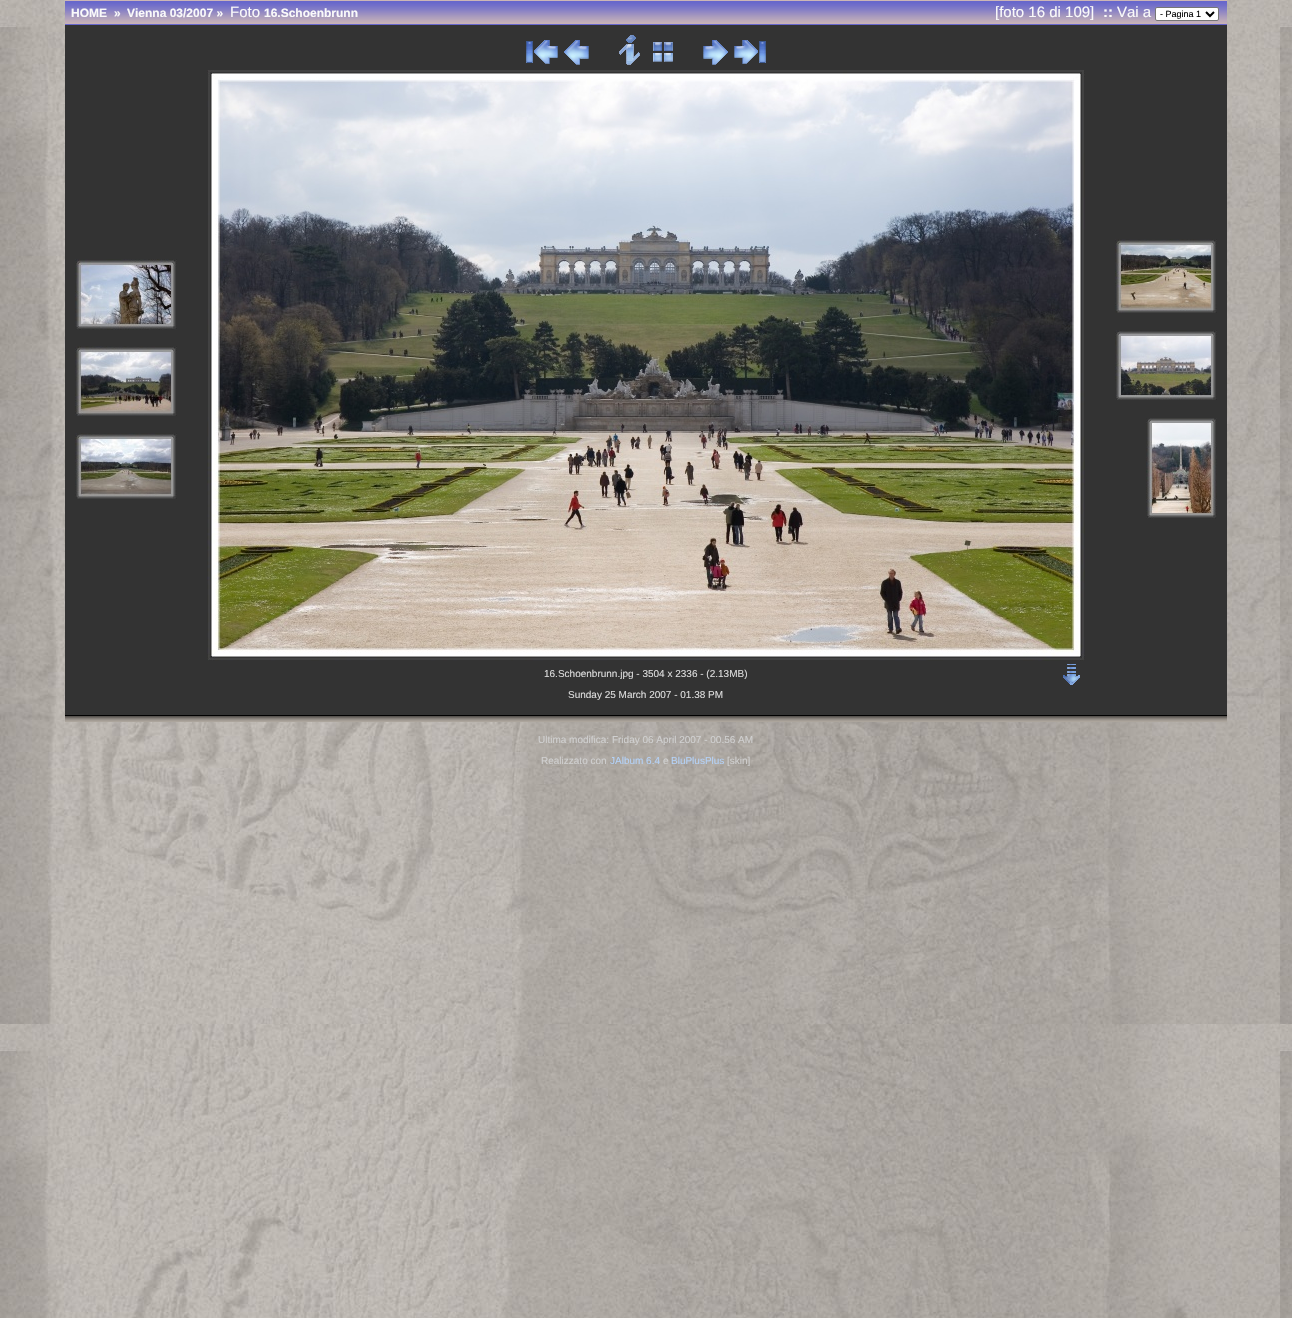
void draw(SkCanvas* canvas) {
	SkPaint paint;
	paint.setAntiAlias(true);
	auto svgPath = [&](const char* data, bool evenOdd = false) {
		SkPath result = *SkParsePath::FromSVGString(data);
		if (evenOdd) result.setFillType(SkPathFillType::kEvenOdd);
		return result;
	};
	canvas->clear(0xffffffff);
	canvas->drawImageRect(SkImages::DeferredFromEncodedData(SkData::MakeFromFileName("img1.png")), SkRect::MakeXYWH(0, 0, 1292, 1318), SkSamplingOptions());
	canvas->drawImageRect(SkImages::DeferredFromEncodedData(SkData::MakeFromFileName("img2.png")), SkRect::MakeXYWH(65, 0, 1162, 25), SkSamplingOptions());
	SkFont f1(fontMgr->matchFamilyStyle("Liberation Sans", SkFontStyle::Bold()), 12);
	f1.setSubpixel(true);
	paint.setColor(0xfffafafa);
	canvas->drawString("HOME", 71, 17, f1, paint);
	canvas->drawString("»", 114, 17, f1, paint);
	canvas->drawString("Vienna 03/2007 »", 127, 17, f1, paint);
	SkFont f2(fontMgr->matchFamilyStyle("Liberation Sans", SkFontStyle::Normal()), 15);
	f2.setSubpixel(true);
	canvas->drawString("Foto", 230, 17, f2, paint);
	canvas->drawString("16.Schoenbrunn", 264, 17, f1, paint);
	canvas->drawString("[foto 16 di 109]", 995, 17, f2, paint);
	SkFont f3(fontMgr->matchFamilyStyle("Liberation Sans", SkFontStyle::Bold()), 15);
	f3.setSubpixel(true);
	canvas->drawString("::", 1103, 17, f3, paint);
	canvas->drawString("Vai a", 1117, 17, f2, paint);
	paint.setColor(0xffffffff);
	canvas->drawRoundRect(SkRect::MakeXYWH(1155.5, 7.5, 63, 13), 1.5, 1.5, paint);
	paint.setStroke(true);
	paint.setStrokeWidth(1);
	paint.setColor(0xff767676);
	canvas->drawRoundRect(SkRect::MakeXYWH(1155.5, 7.5, 63, 13), 1.5, 1.5, paint);
	paint.setStrokeWidth(2);
	paint.setColor(0xff000000);
	canvas->drawPath(svgPath("M1206 12L1210 16L1214 12"), paint);
	SkFont f4(fontMgr->matchFamilyStyle("Liberation Sans", SkFontStyle::Normal()), 9);
	f4.setSubpixel(true);
	paint.setStroke(false);
	canvas->drawString("- Pagina 1", 1160, 17, f4, paint);
	paint.setColor(0xff333333);
	canvas->drawRect(SkRect::MakeXYWH(65, 25, 1162, 690), paint);
	canvas->drawImageRect(SkImages::DeferredFromEncodedData(SkData::MakeFromFileName("img3.png")), SkRect::MakeXYWH(526, 40, 32, 24), SkSamplingOptions());
	canvas->drawImageRect(SkImages::DeferredFromEncodedData(SkData::MakeFromFileName("img4.png")), SkRect::MakeXYWH(564, 40, 25, 25), SkSamplingOptions());
	canvas->drawImageRect(SkImages::DeferredFromEncodedData(SkData::MakeFromFileName("img5.png")), SkRect::MakeXYWH(619, 35, 21, 30), SkSamplingOptions());
	canvas->drawImageRect(SkImages::DeferredFromEncodedData(SkData::MakeFromFileName("img6.png")), SkRect::MakeXYWH(653, 42, 20, 20), SkSamplingOptions());
	canvas->drawImageRect(SkImages::DeferredFromEncodedData(SkData::MakeFromFileName("img7.png")), SkRect::MakeXYWH(703, 40, 25, 25), SkSamplingOptions());
	canvas->drawImageRect(SkImages::DeferredFromEncodedData(SkData::MakeFromFileName("img8.png")), SkRect::MakeXYWH(734, 40, 32, 24), SkSamplingOptions());
	canvas->drawImageRect(SkImages::DeferredFromEncodedData(SkData::MakeFromFileName("img9.png")), SkRect::MakeXYWH(75, 259, 102, 71), SkSamplingOptions());
	canvas->drawImageRect(SkImages::DeferredFromEncodedData(SkData::MakeFromFileName("img10.png")), SkRect::MakeXYWH(75, 346, 102, 70), SkSamplingOptions());
	canvas->drawImageRect(SkImages::DeferredFromEncodedData(SkData::MakeFromFileName("img11.png")), SkRect::MakeXYWH(75, 433, 102, 66), SkSamplingOptions());
	canvas->drawImageRect(SkImages::DeferredFromEncodedData(SkData::MakeFromFileName("img12.png")), SkRect::MakeXYWH(1115, 239, 102, 74), SkSamplingOptions());
	canvas->drawImageRect(SkImages::DeferredFromEncodedData(SkData::MakeFromFileName("img13.png")), SkRect::MakeXYWH(1115, 330, 102, 70), SkSamplingOptions());
	canvas->drawImageRect(SkImages::DeferredFromEncodedData(SkData::MakeFromFileName("img14.png")), SkRect::MakeXYWH(1146, 418, 71, 101), SkSamplingOptions());
	canvas->drawImageRect(SkImages::DeferredFromEncodedData(SkData::MakeFromFileName("img15.png")), SkRect::MakeXYWH(207, 70, 878, 591), SkSamplingOptions());
	SkFont f5(fontMgr->matchFamilyStyle("Liberation Sans", SkFontStyle::Normal()), 10);
	f5.setSubpixel(true);
	paint.setColor(0xffdddddd);
	canvas->drawString("16.Schoenbrunn.jpg - 3504 x 2336 - (2.13MB)", 544, 677, f5, paint);
	canvas->drawImageRect(SkImages::DeferredFromEncodedData(SkData::MakeFromFileName("img16.png")), SkRect::MakeXYWH(1063, 664, 17, 21), SkSamplingOptions());
	canvas->drawString("Sunday 25 March 2007 - 01.38 PM", 568, 698, f5, paint);
	paint.setColor(0xff000000);
	canvas->drawRect(SkRect::MakeXYWH(65, 715, 1162, 1), paint);
	paint.setColor(0xff585450);
	canvas->drawRect(SkRect::MakeXYWH(65, 716, 1162, 1), paint);
	paint.setColor(0xff6e6964);
	canvas->drawRect(SkRect::MakeXYWH(65, 717, 1162, 1), paint);
	paint.setColor(0xff847e78);
	canvas->drawRect(SkRect::MakeXYWH(65, 718, 1162, 1), paint);
	paint.setColor(0xff958f88);
	canvas->drawRect(SkRect::MakeXYWH(65, 719, 1162, 1), paint);
	paint.setColor(0xffa39c94);
	canvas->drawRect(SkRect::MakeXYWH(65, 720, 1162, 1), paint);
	paint.setColor(0xffaca59c);
	canvas->drawRect(SkRect::MakeXYWH(65, 721, 1162, 1), paint);
	paint.setColor(0xffd0d0d0);
	canvas->drawString("Ultima modifica: Friday 06 April 2007 - 00.56 AM", 538, 743, f5, paint);
	canvas->drawString("Realizzato con", 541, 764, f5, paint);
	paint.setColor(0xffb4d2f8);
	canvas->drawString("JAlbum 6.4", 610, 764, f5, paint);
	paint.setColor(0xffd0d0d0);
	canvas->drawString("e", 663, 764, f5, paint);
	paint.setColor(0xffb4d2f8);
	canvas->drawString("BluPlusPlus", 671, 764, f5, paint);
	paint.setColor(0xffd0d0d0);
	canvas->drawString("[skin]", 727, 764, f5, paint);
}
